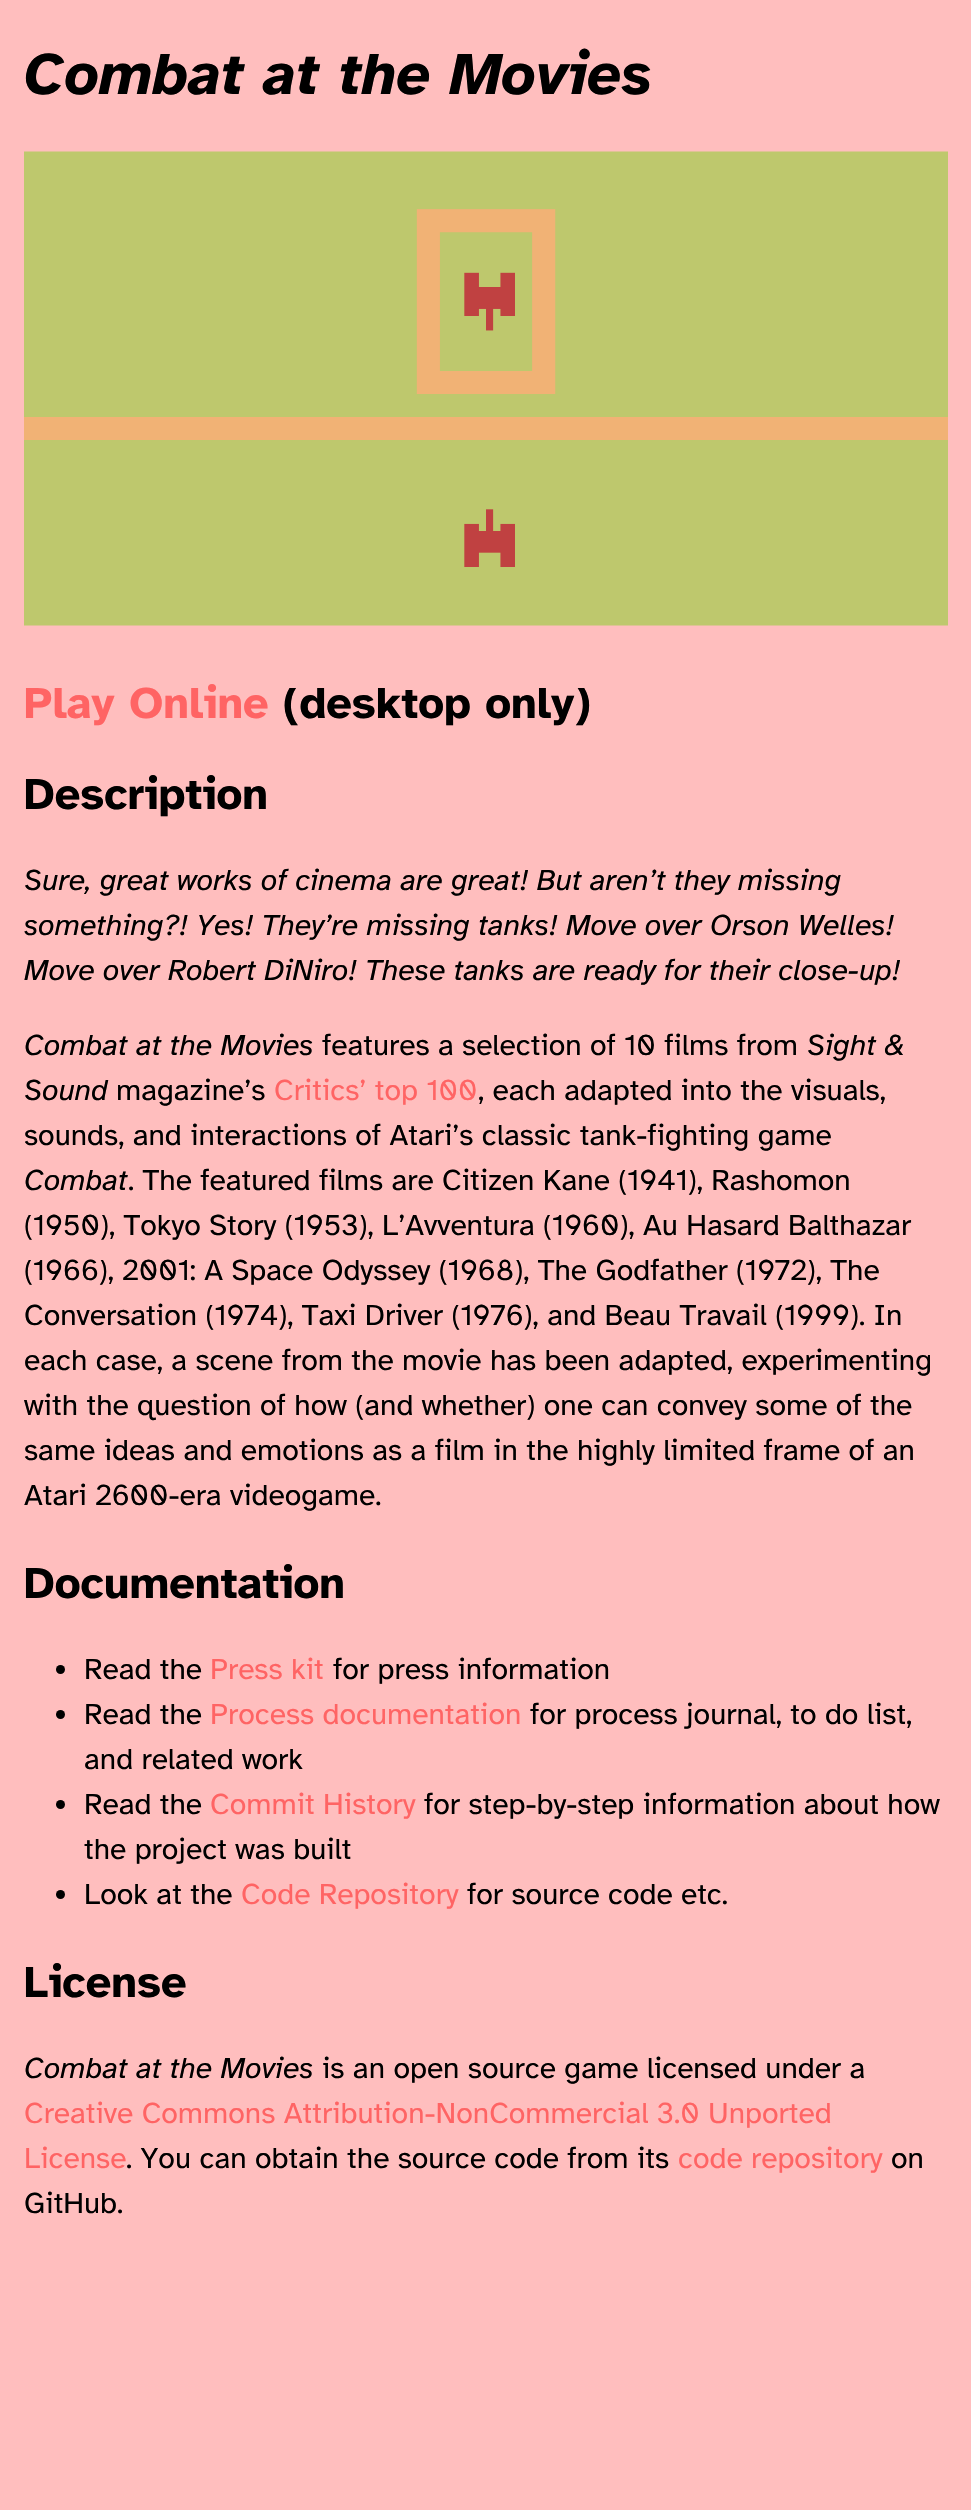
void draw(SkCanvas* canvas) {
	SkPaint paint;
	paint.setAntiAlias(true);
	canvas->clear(0xffffbebe);
	SkFont f1(fontMgr->matchFamilyStyle("Atkinson Hyperlegible", SkFontStyle::BoldItalic()), 60);
	f1.setSubpixel(true);
	paint.setColor(0xff000000);
	canvas->drawString("Combat at the Movies", 24, 94, f1, paint);
	canvas->drawImageRect(SkImages::DeferredFromEncodedData(SkData::MakeFromFileName("img1.png")), SkRect::MakeXYWH(24, 151, 924, 475), SkSamplingOptions());
	SkFont f2(fontMgr->matchFamilyStyle("Atkinson Hyperlegible", SkFontStyle::Bold()), 45);
	f2.setSubpixel(true);
	paint.setColor(0xffff6464);
	canvas->drawString("Play Online", 24, 718, f2, paint);
	paint.setColor(0xff000000);
	canvas->drawString("(desktop only)", 283, 718, f2, paint);
	canvas->drawString("Description", 24, 809, f2, paint);
	SkFont f3(fontMgr->matchFamilyStyle("Atkinson Hyperlegible", SkFontStyle::Italic()), 30);
	f3.setSubpixel(true);
	canvas->drawString("Sure, great works of cinema are great! But aren’t they missing", 24, 890, f3, paint);
	canvas->drawString("something?! Yes! They’re missing tanks! Move over Orson Welles!", 24, 935, f3, paint);
	canvas->drawString("Move over Robert DiNiro! These tanks are ready for their close-up!", 24, 980, f3, paint);
	canvas->drawString("Combat at the Movies", 24, 1055, f3, paint);
	SkFont f4(fontMgr->matchFamilyStyle("Atkinson Hyperlegible", SkFontStyle::Normal()), 30);
	f4.setSubpixel(true);
	canvas->drawString("features a selection of 10 films from", 322, 1055, f4, paint);
	canvas->drawString("Sight &", 807, 1055, f3, paint);
	canvas->drawString("Sound", 24, 1100, f3, paint);
	canvas->drawString("magazine’s", 116, 1100, f4, paint);
	paint.setColor(0xffff6464);
	canvas->drawString("Critics’ top 100", 274, 1100, f4, paint);
	paint.setColor(0xff000000);
	canvas->drawString(", each adapted into the visuals,", 478, 1100, f4, paint);
	canvas->drawString("sounds, and interactions of Atari’s classic tank-fighting game", 24, 1145, f4, paint);
	canvas->drawString("Combat", 24, 1190, f3, paint);
	canvas->drawString(". The featured films are Citizen Kane (1941), Rashomon", 128, 1190, f4, paint);
	canvas->drawString("(1950), Tokyo Story (1953), L’Avventura (1960), Au Hasard Balthazar", 24, 1235, f4, paint);
	canvas->drawString("(1966), 2001: A Space Odyssey (1968), The Godfather (1972), The", 24, 1280, f4, paint);
	canvas->drawString("Conversation (1974), Taxi Driver (1976), and Beau Travail (1999). In", 24, 1325, f4, paint);
	canvas->drawString("each case, a scene from the movie has been adapted, experimenting", 24, 1370, f4, paint);
	canvas->drawString("with the question of how (and whether) one can convey some of the", 24, 1415, f4, paint);
	canvas->drawString("same ideas and emotions as a film in the highly limited frame of an", 24, 1460, f4, paint);
	canvas->drawString("Atari 2600-era videogame.", 24, 1505, f4, paint);
	canvas->drawString("Documentation", 24, 1598, f2, paint);
	canvas->drawCircle(60.5, 1669.5, 4.5, paint);
	canvas->drawString("Read the", 84, 1679, f4, paint);
	paint.setColor(0xffff6464);
	canvas->drawString("Press kit", 210, 1679, f4, paint);
	paint.setColor(0xff000000);
	canvas->drawString("for press information", 333, 1679, f4, paint);
	canvas->drawCircle(60.5, 1714.5, 4.5, paint);
	canvas->drawString("Read the", 84, 1724, f4, paint);
	paint.setColor(0xffff6464);
	canvas->drawString("Process documentation", 210, 1724, f4, paint);
	paint.setColor(0xff000000);
	canvas->drawString("for process journal, to do list,", 530, 1724, f4, paint);
	canvas->drawString("and related work", 84, 1769, f4, paint);
	canvas->drawCircle(60.5, 1804.5, 4.5, paint);
	canvas->drawString("Read the", 84, 1814, f4, paint);
	paint.setColor(0xffff6464);
	canvas->drawString("Commit History", 210, 1814, f4, paint);
	paint.setColor(0xff000000);
	canvas->drawString("for step-by-step information about how", 424, 1814, f4, paint);
	canvas->drawString("the project was built", 84, 1859, f4, paint);
	canvas->drawCircle(60.5, 1894.5, 4.5, paint);
	canvas->drawString("Look at the", 84, 1904, f4, paint);
	paint.setColor(0xffff6464);
	canvas->drawString("Code Repository", 241, 1904, f4, paint);
	paint.setColor(0xff000000);
	canvas->drawString("for source code etc.", 467, 1904, f4, paint);
	canvas->drawString("License", 24, 1997, f2, paint);
	canvas->drawString("Combat at the Movies", 24, 2078, f3, paint);
	canvas->drawString("is an open source game licensed under a", 322, 2078, f4, paint);
	paint.setColor(0xffff6464);
	canvas->drawString("Creative Commons Attribution-NonCommercial 3.0 Unported", 24, 2123, f4, paint);
	canvas->drawString("License", 24, 2168, f4, paint);
	paint.setColor(0xff000000);
	canvas->drawString(". You can obtain the source code from its", 126, 2168, f4, paint);
	paint.setColor(0xffff6464);
	canvas->drawString("code repository", 678, 2168, f4, paint);
	paint.setColor(0xff000000);
	canvas->drawString("on", 891, 2168, f4, paint);
	canvas->drawString("GitHub.", 24, 2213, f4, paint);
}
